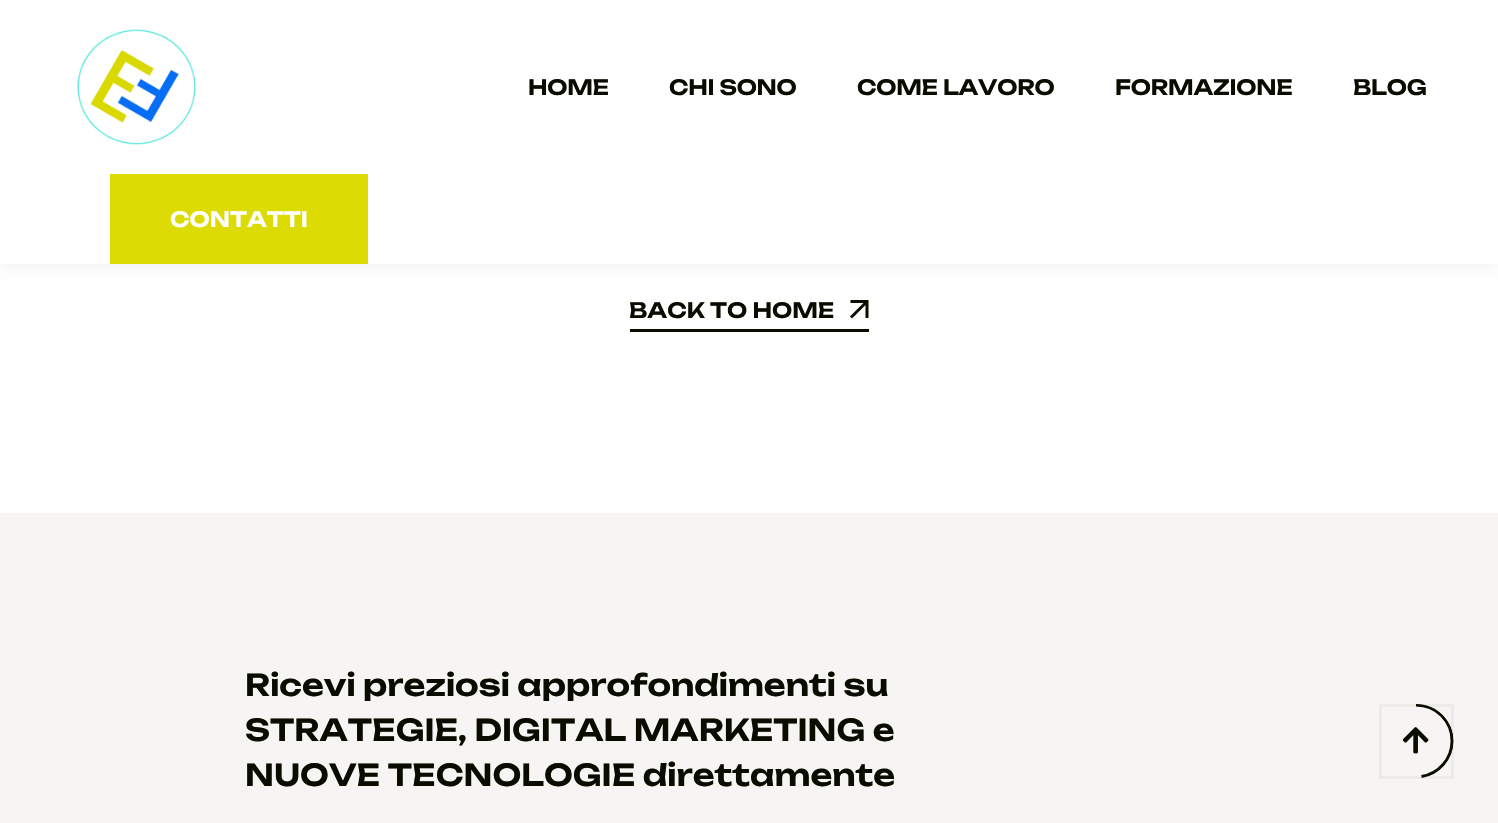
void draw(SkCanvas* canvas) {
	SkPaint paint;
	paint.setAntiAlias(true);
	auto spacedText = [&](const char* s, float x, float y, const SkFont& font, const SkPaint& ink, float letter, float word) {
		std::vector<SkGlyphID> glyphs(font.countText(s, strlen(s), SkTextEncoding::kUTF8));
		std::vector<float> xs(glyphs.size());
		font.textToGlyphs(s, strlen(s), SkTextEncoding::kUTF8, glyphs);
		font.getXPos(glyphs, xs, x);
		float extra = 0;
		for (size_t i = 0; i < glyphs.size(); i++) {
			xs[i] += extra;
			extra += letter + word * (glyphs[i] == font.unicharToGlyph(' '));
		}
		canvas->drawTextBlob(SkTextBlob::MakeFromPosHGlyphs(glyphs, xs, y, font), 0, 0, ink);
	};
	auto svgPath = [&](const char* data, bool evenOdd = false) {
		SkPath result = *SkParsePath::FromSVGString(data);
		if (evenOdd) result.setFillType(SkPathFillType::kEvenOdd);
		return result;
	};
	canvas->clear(0xffffffff);
	paint.setColor(0x12000000);
	paint.setMaskFilter(SkMaskFilter::MakeBlur(kNormal_SkBlurStyle, 7.5));
	canvas->drawRect(SkRect::MakeXYWH(0, 0, 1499, 264), paint);
	paint.setMaskFilter(nullptr);
	paint.setColor(0xffffffff);
	canvas->drawRect(SkRect::MakeXYWH(0, 0, 1498, 264), paint);
	canvas->drawImageRect(SkImages::DeferredFromEncodedData(SkData::MakeFromFileName("img1.png")), SkRect::MakeXYWH(77, 29, 119, 116), SkSamplingOptions());
	SkFont f1(fontMgr->matchFamilyStyle("Unbounded", SkFontStyle(600, SkFontStyle::kNormal_Width, SkFontStyle::kUpright_Slant)), 21);
	f1.setSubpixel(true);
	paint.setColor(0xff0a0c00);
	spacedText("HOME", 528, 95, f1, paint, -0.25, 0);
	spacedText("CHI SONO", 669, 95, f1, paint, -0.25, 0);
	spacedText("COME LAVORO", 857, 95, f1, paint, -0.25, 0);
	spacedText("FORMAZIONE", 1115, 95, f1, paint, -0.25, 0);
	spacedText("BLOG", 1353, 95, f1, paint, -0.25, 0);
	paint.setColor(0xffdcdc04);
	canvas->drawRect(SkRect::MakeXYWH(110, 174, 258, 90), paint);
	paint.setColor(0xffffffff);
	canvas->drawString("CONTATTI", 170, 227, f1, paint);
	paint.setColor(0xff0a0c00);
	canvas->drawString("BACK TO HOME", 629, 318, f1, paint);
	paint.setStroke(true);
	paint.setStrokeWidth(3);
	paint.setStrokeCap(SkPaint::kSquare_Cap);
	canvas->drawPath(svgPath("M852 316.5L866 302.5M867 316.5V301.5H852"), paint);
	paint.setStroke(false);
	canvas->drawRect(SkRect::MakeXYWH(630, 329, 239, 3), paint);
	paint.setColor(0xfff6f5f3);
	canvas->drawRect(SkRect::MakeXYWH(0, 513, 1498, 310), paint);
	SkFont f2(fontMgr->matchFamilyStyle("Unbounded", SkFontStyle(600, SkFontStyle::kNormal_Width, SkFontStyle::kUpright_Slant)), 30);
	f2.setSubpixel(true);
	paint.setColor(0xff0a0c00);
	canvas->drawString("Ricevi preziosi approfondimenti su", 245, 696, f2, paint);
	canvas->drawString("STRATEGIE, DIGITAL MARKETING e", 245, 741, f2, paint);
	canvas->drawString("NUOVE TECNOLOGIE direttamente", 245, 786, f2, paint);
	canvas->save();
	canvas->clipPath(svgPath("M1416.5 704C1437 704 1454 721 1454 741.5C1454 762 1437 779 1416.5 779C1396 779 1379 762 1379 741.5C1379 721 1396 704 1416.5 704Z"), true);
	paint.setStroke(true);
	paint.setStrokeWidth(2.9);
	paint.setStrokeCap(SkPaint::kButt_Cap);
	canvas->drawPath(svgPath("M1416 705C1436 705 1452 721 1452 741C1452 759 1438.5 774 1421.5 776.5"), paint);
	canvas->restore();
	paint.setStrokeWidth(3);
	paint.setColor(0x0a000000);
	canvas->drawRect(SkRect::MakeXYWH(1380.5, 705.5, 72, 72), paint);
	canvas->drawImageRect(SkImages::DeferredFromEncodedData(SkData::MakeFromFileName("img2.png")), SkRect::MakeXYWH(1402, 727, 27, 27), SkSamplingOptions());
}
